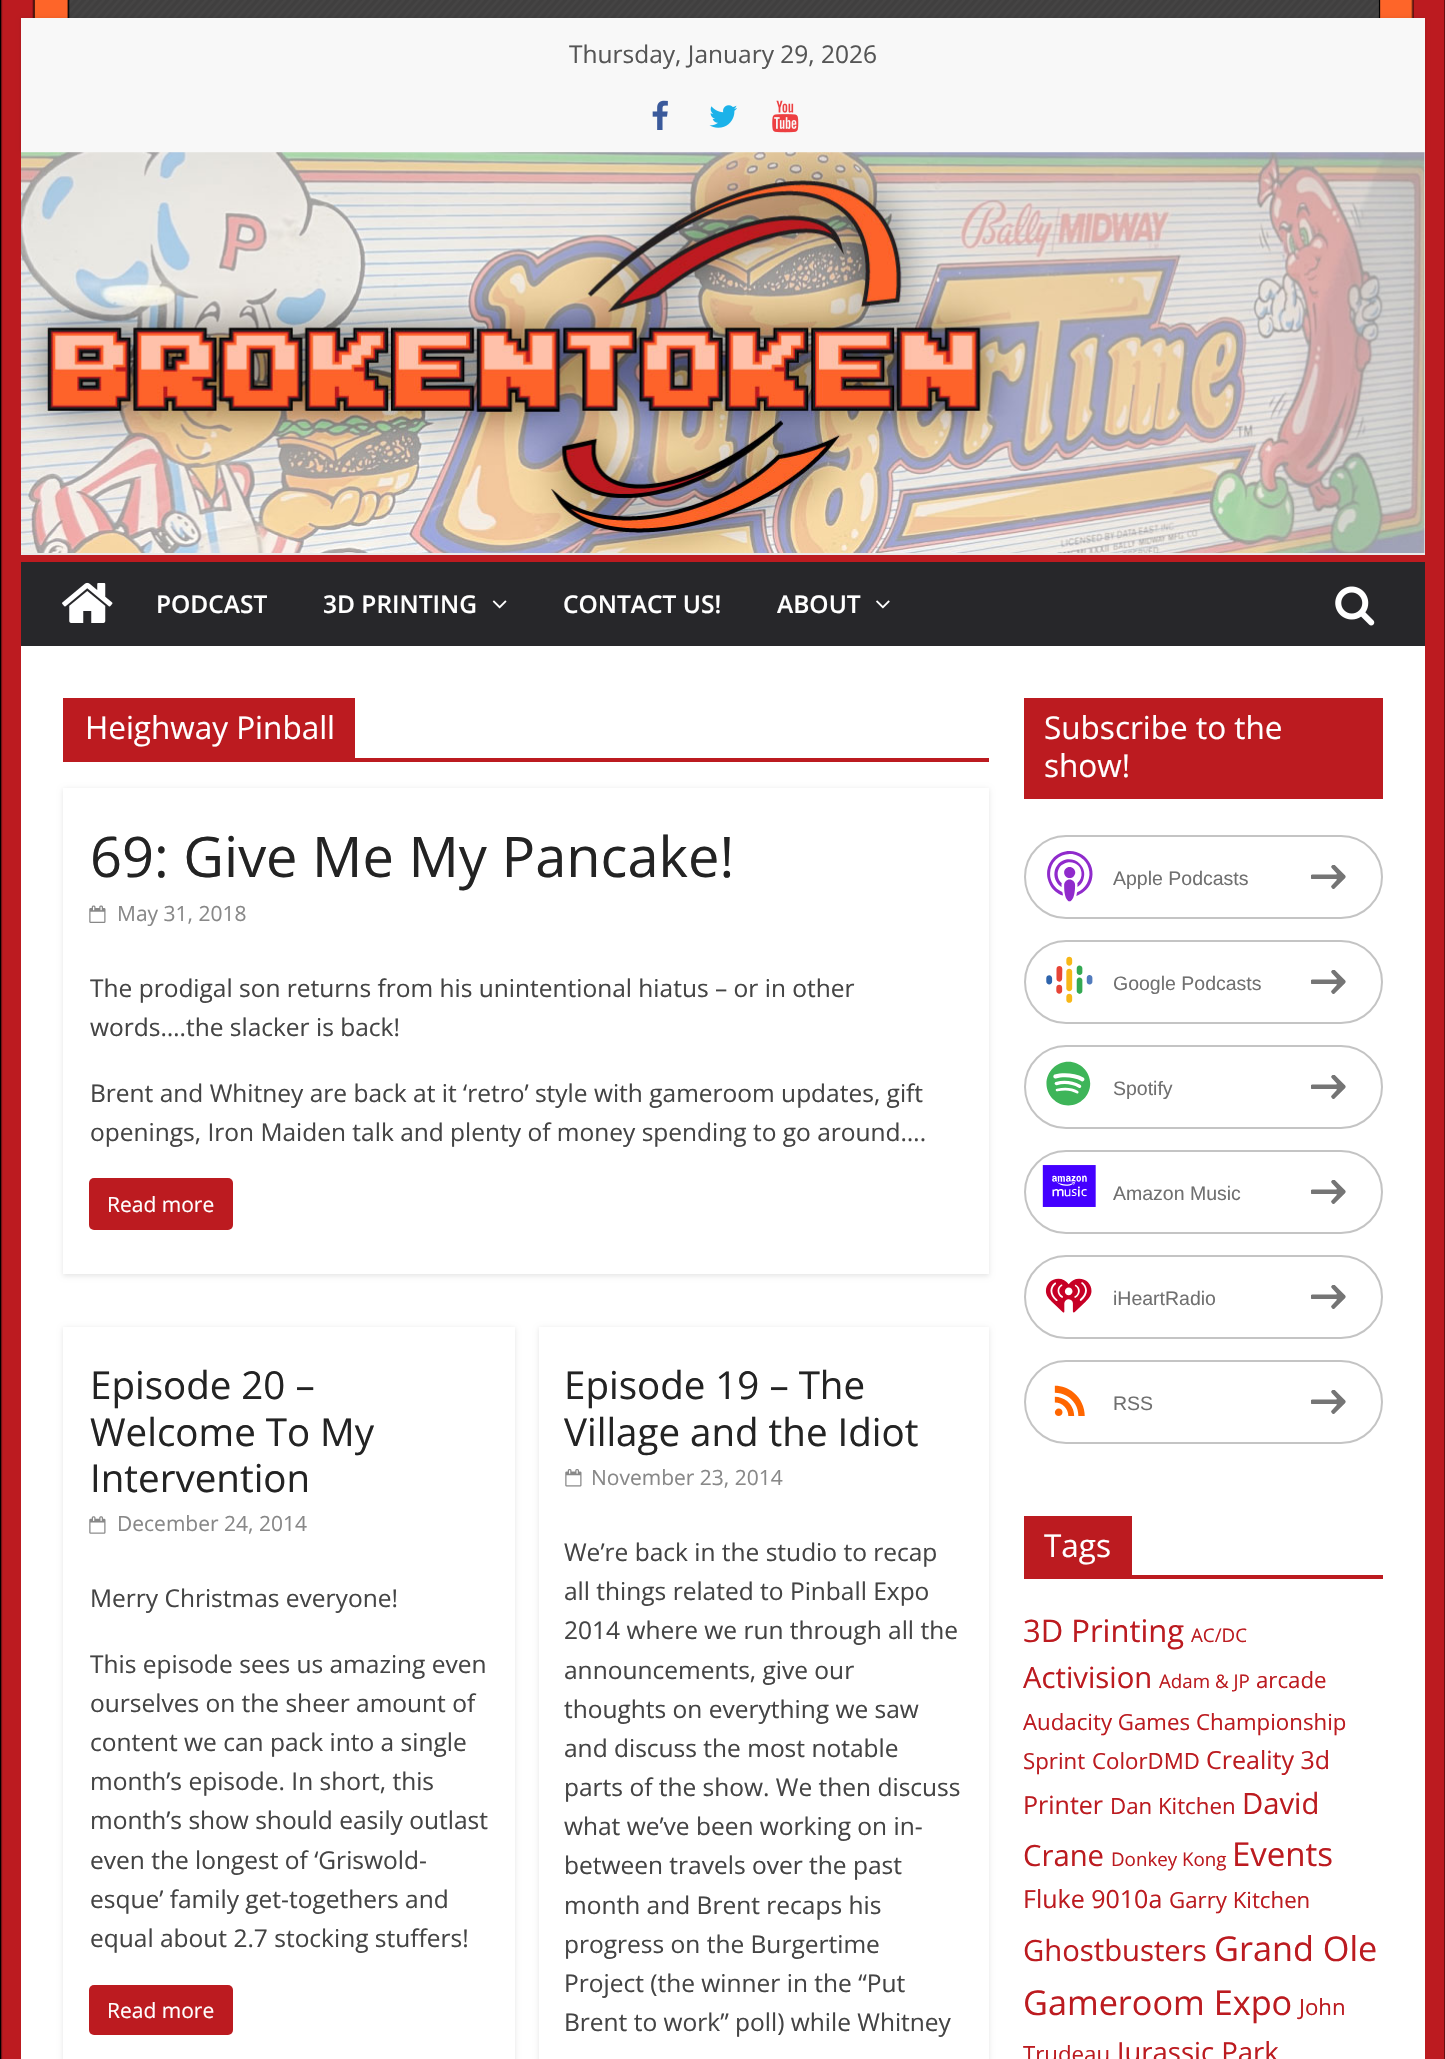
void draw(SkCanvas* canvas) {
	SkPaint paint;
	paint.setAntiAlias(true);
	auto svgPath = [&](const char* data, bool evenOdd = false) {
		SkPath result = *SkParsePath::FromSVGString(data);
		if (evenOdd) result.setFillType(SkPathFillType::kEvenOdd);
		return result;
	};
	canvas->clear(0xffffffff);
	canvas->drawImageRect(SkImages::DeferredFromEncodedData(SkData::MakeFromFileName("img1.png")), SkRect::MakeXYWH(0, 0, 1445, 2059), SkSamplingOptions());
	paint.setColor(0xffffffff);
	canvas->drawRect(SkRect::MakeXYWH(21, 152, 1404, 401), paint);
	paint.setColor(0x1a000000);
	paint.setMaskFilter(SkMaskFilter::MakeBlur(kNormal_SkBlurStyle, 2));
	canvas->drawRect(SkRect::MakeXYWH(21, 18, 1404, 134), paint);
	paint.setMaskFilter(nullptr);
	paint.setColor(0xfff8f8f8);
	canvas->drawRect(SkRect::MakeXYWH(21, 18, 1404, 134), paint);
	SkFont f1(fontMgr->matchFamilyStyle("Open Sans", SkFontStyle::Normal()), 24.5);
	f1.setSubpixel(true);
	paint.setColor(0xff555555);
	canvas->drawString("Thursday, January 29, 2026", 569, 63, f1, paint);
	canvas->drawImageRect(SkImages::DeferredFromEncodedData(SkData::MakeFromFileName("img2.png")), SkRect::MakeXYWH(652, 100, 16, 30), SkSamplingOptions());
	canvas->drawImageRect(SkImages::DeferredFromEncodedData(SkData::MakeFromFileName("img3.png")), SkRect::MakeXYWH(709, 105, 28, 23), SkSamplingOptions());
	canvas->drawImageRect(SkImages::DeferredFromEncodedData(SkData::MakeFromFileName("img4.png")), SkRect::MakeXYWH(772, 100, 27, 33), SkSamplingOptions());
	canvas->drawImageRect(SkImages::DeferredFromEncodedData(SkData::MakeFromFileName("img5.png")), SkRect::MakeXYWH(21, 152, 1404, 401), SkSamplingOptions());
	paint.setColor(0xffeaeaea);
	canvas->drawRect(SkRect::MakeXYWH(21, 553, 1404, 2), paint);
	paint.setColor(0xff27272a);
	canvas->drawRect(SkRect::MakeXYWH(21, 562, 1404, 84), paint);
	paint.setColor(0xffbc1b20);
	canvas->drawRect(SkRect::MakeXYWH(32, 555, 1382, 7), paint);
	canvas->drawImageRect(SkImages::DeferredFromEncodedData(SkData::MakeFromFileName("img6.png")), SkRect::MakeXYWH(62, 582, 51, 41), SkSamplingOptions());
	SkFont f2(fontMgr->matchFamilyStyle("Open Sans", SkFontStyle(600, SkFontStyle::kNormal_Width, SkFontStyle::kUpright_Slant)), 24.5);
	f2.setSubpixel(true);
	paint.setColor(0xffffffff);
	canvas->drawString("PODCAST", 156, 613, f2, paint);
	canvas->drawString("3D PRINTING", 323, 613, f2, paint);
	canvas->drawImageRect(SkImages::DeferredFromEncodedData(SkData::MakeFromFileName("img7.png")), SkRect::MakeXYWH(492, 600, 15, 9), SkSamplingOptions());
	canvas->drawString("CONTACT US!", 563, 613, f2, paint);
	canvas->drawString("ABOUT", 777, 613, f2, paint);
	canvas->drawImageRect(SkImages::DeferredFromEncodedData(SkData::MakeFromFileName("img8.png")), SkRect::MakeXYWH(876, 600, 14, 9), SkSamplingOptions());
	canvas->drawImageRect(SkImages::DeferredFromEncodedData(SkData::MakeFromFileName("img9.png")), SkRect::MakeXYWH(1335, 586, 40, 40), SkSamplingOptions());
	canvas->drawRect(SkRect::MakeXYWH(21, 646, 1404, 1413), paint);
	paint.setColor(0xffbc1b20);
	canvas->drawRect(SkRect::MakeXYWH(63, 758, 926, 4), paint);
	canvas->drawRect(SkRect::MakeXYWH(63, 698, 292, 60), paint);
	SkFont f3(fontMgr->matchFamilyStyle("Open Sans", SkFontStyle::Normal()), 31.5);
	f3.setSubpixel(true);
	paint.setColor(0xffffffff);
	canvas->drawString("Heighway Pinball", 85, 739, f3, paint);
	canvas->save();
	canvas->clipPath(svgPath("M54 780H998V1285H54ZM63 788H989V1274H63Z", true), true);
	paint.setColor(0x1a000000);
	paint.setMaskFilter(SkMaskFilter::MakeBlur(kNormal_SkBlurStyle, 2.5));
	canvas->drawRect(SkRect::MakeXYWH(63, 789, 926, 487), paint);
	paint.setMaskFilter(nullptr);
	canvas->restore();
	SkFont f4(fontMgr->matchFamilyStyle("Open Sans", SkFontStyle::Normal()), 56);
	f4.setSubpixel(true);
	paint.setColor(0xff232323);
	canvas->drawString("69: Give Me My Pancake!", 90, 877, f4, paint);
	canvas->drawImageRect(SkImages::DeferredFromEncodedData(SkData::MakeFromFileName("img10.png")), SkRect::MakeXYWH(89, 905, 17, 18), SkSamplingOptions());
	SkFont f5(fontMgr->matchFamilyStyle("Open Sans", SkFontStyle::Normal()), 21);
	f5.setSubpixel(true);
	paint.setColor(0xff888888);
	canvas->drawString("May 31, 2018", 117, 921, f5, paint);
	paint.setColor(0xff444444);
	canvas->drawString("The prodigal son returns from his unintentional hiatus – or in other", 90, 997, f1, paint);
	canvas->drawString("words….the slacker is back!", 90, 1036, f1, paint);
	canvas->drawString("Brent and Whitney are back at it ‘retro’ style with gameroom updates, gift", 90, 1102, f1, paint);
	canvas->drawString("openings, Iron Maiden talk and plenty of money spending to go around….", 90, 1141, f1, paint);
	paint.setColor(0xffbc1b20);
	canvas->drawRoundRect(SkRect::MakeXYWH(89, 1178, 144, 52), 5, 5, paint);
	paint.setColor(0xffffffff);
	canvas->drawString("Read more", 107, 1212, f5, paint);
	canvas->save();
	canvas->clipPath(svgPath("M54 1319H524V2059H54ZM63 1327H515V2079H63Z", true), true);
	paint.setColor(0x1a000000);
	paint.setMaskFilter(SkMaskFilter::MakeBlur(kNormal_SkBlurStyle, 2.5));
	canvas->drawRect(SkRect::MakeXYWH(63, 1328, 452, 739), paint);
	paint.setMaskFilter(nullptr);
	canvas->restore();
	SkFont f6(fontMgr->matchFamilyStyle("Open Sans", SkFontStyle::Normal()), 38.5);
	f6.setSubpixel(true);
	paint.setColor(0xff232323);
	canvas->drawString("Episode 20 –", 90, 1399, f6, paint);
	canvas->drawString("Welcome To My", 90, 1446, f6, paint);
	canvas->drawString("Intervention", 90, 1492, f6, paint);
	canvas->drawImageRect(SkImages::DeferredFromEncodedData(SkData::MakeFromFileName("img11.png")), SkRect::MakeXYWH(89, 1516, 17, 18), SkSamplingOptions());
	paint.setColor(0xff888888);
	canvas->drawString("December 24, 2014", 117, 1531, f5, paint);
	paint.setColor(0xff444444);
	canvas->drawString("Merry Christmas everyone!", 90, 1607, f1, paint);
	canvas->drawString("This episode sees us amazing even", 90, 1673, f1, paint);
	canvas->drawString("ourselves on the sheer amount of", 90, 1712, f1, paint);
	canvas->drawString("content we can pack into a single", 90, 1751, f1, paint);
	canvas->drawString("month’s episode. In short, this", 90, 1790, f1, paint);
	canvas->drawString("month’s show should easily outlast", 90, 1829, f1, paint);
	canvas->drawString("even the longest of ‘Griswold-", 90, 1869, f1, paint);
	canvas->drawString("esque’ family get-togethers and", 90, 1908, f1, paint);
	canvas->drawString("equal about 2.7 stocking stuffers!", 90, 1947, f1, paint);
	paint.setColor(0xffbc1b20);
	canvas->drawRoundRect(SkRect::MakeXYWH(89, 1985, 144, 50), 5, 5, paint);
	paint.setColor(0xffffffff);
	canvas->drawString("Read more", 107, 2018, f5, paint);
	canvas->save();
	canvas->clipPath(svgPath("M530 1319H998V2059H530ZM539 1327H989V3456H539Z", true), true);
	paint.setColor(0x1a000000);
	paint.setMaskFilter(SkMaskFilter::MakeBlur(kNormal_SkBlurStyle, 2.5));
	canvas->drawRect(SkRect::MakeXYWH(539, 1328, 450, 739), paint);
	paint.setMaskFilter(nullptr);
	canvas->restore();
	paint.setColor(0xff232323);
	canvas->drawString("Episode 19 – The", 564, 1399, f6, paint);
	canvas->drawString("Village and the Idiot", 564, 1446, f6, paint);
	canvas->drawImageRect(SkImages::DeferredFromEncodedData(SkData::MakeFromFileName("img12.png")), SkRect::MakeXYWH(565, 1469, 17, 18), SkSamplingOptions());
	paint.setColor(0xff888888);
	canvas->drawString("November 23, 2014", 591, 1485, f5, paint);
	paint.setColor(0xff444444);
	canvas->drawString("We’re back in the studio to recap", 564, 1561, f1, paint);
	canvas->drawString("all things related to Pinball Expo", 564, 1600, f1, paint);
	canvas->drawString("2014 where we run through all the", 564, 1639, f1, paint);
	canvas->drawString("announcements, give our", 564, 1679, f1, paint);
	canvas->drawString("thoughts on everything we saw", 564, 1718, f1, paint);
	canvas->drawString("and discuss the most notable", 564, 1757, f1, paint);
	canvas->drawString("parts of the show. We then discuss", 564, 1796, f1, paint);
	canvas->drawString("what we’ve been working on in-", 564, 1835, f1, paint);
	canvas->drawString("between travels over the past", 564, 1874, f1, paint);
	canvas->drawString("month and Brent recaps his", 564, 1914, f1, paint);
	canvas->drawString("progress on the Burgertime", 564, 1953, f1, paint);
	canvas->drawString("Project (the winner in the “Put", 564, 1992, f1, paint);
	canvas->drawString("Brent to work” poll) while Whitney", 564, 2031, f1, paint);
	paint.setColor(0xffbc1b20);
	canvas->drawRect(SkRect::MakeXYWH(1024, 698, 359, 101), paint);
	paint.setColor(0xffffffff);
	canvas->drawString("Subscribe to the", 1044, 739, f3, paint);
	canvas->drawString("show!", 1044, 777, f3, paint);
	paint.setStroke(true);
	paint.setStrokeWidth(2);
	paint.setColor(0xffc4c4c4);
	canvas->drawRoundRect(SkRect::MakeXYWH(1025, 836, 357, 82), 41, 41, paint);
	canvas->drawImageRect(SkImages::DeferredFromEncodedData(SkData::MakeFromFileName("img13.png")), SkRect::MakeXYWH(1047, 851, 46, 51), SkSamplingOptions());
	SkFont f7(fontMgr->matchFamilyStyle("Liberation Sans", SkFontStyle::Normal()), 19.5);
	f7.setSubpixel(true);
	paint.setStroke(false);
	paint.setColor(0xff707070);
	canvas->drawString("Apple Podcasts", 1113, 885, f7, paint);
	canvas->drawImageRect(SkImages::DeferredFromEncodedData(SkData::MakeFromFileName("img14.png")), SkRect::MakeXYWH(1311, 865, 35, 24), SkSamplingOptions());
	paint.setStroke(true);
	paint.setColor(0xffc4c4c4);
	canvas->drawRoundRect(SkRect::MakeXYWH(1025, 941, 357, 82), 41, 41, paint);
	canvas->drawImageRect(SkImages::DeferredFromEncodedData(SkData::MakeFromFileName("img15.png")), SkRect::MakeXYWH(1046, 956, 47, 47), SkSamplingOptions());
	paint.setStroke(false);
	paint.setColor(0xff707070);
	canvas->drawString("Google Podcasts", 1113, 990, f7, paint);
	canvas->drawImageRect(SkImages::DeferredFromEncodedData(SkData::MakeFromFileName("img14.png")), SkRect::MakeXYWH(1311, 970, 35, 24), SkSamplingOptions());
	paint.setStroke(true);
	paint.setColor(0xffc4c4c4);
	canvas->drawRoundRect(SkRect::MakeXYWH(1025, 1046, 357, 82), 41, 41, paint);
	canvas->drawImageRect(SkImages::DeferredFromEncodedData(SkData::MakeFromFileName("img16.png")), SkRect::MakeXYWH(1046, 1061, 45, 45), SkSamplingOptions());
	paint.setStroke(false);
	paint.setColor(0xff707070);
	canvas->drawString("Spotify", 1113, 1095, f7, paint);
	canvas->drawImageRect(SkImages::DeferredFromEncodedData(SkData::MakeFromFileName("img14.png")), SkRect::MakeXYWH(1311, 1075, 35, 24), SkSamplingOptions());
	paint.setStroke(true);
	paint.setColor(0xffc4c4c4);
	canvas->drawRoundRect(SkRect::MakeXYWH(1025, 1151, 357, 82), 41, 41, paint);
	canvas->drawImageRect(SkImages::DeferredFromEncodedData(SkData::MakeFromFileName("img17.png")), SkRect::MakeXYWH(1042, 1165, 54, 42), SkSamplingOptions());
	paint.setStroke(false);
	paint.setColor(0xff707070);
	canvas->drawString("Amazon Music", 1113, 1200, f7, paint);
	canvas->drawImageRect(SkImages::DeferredFromEncodedData(SkData::MakeFromFileName("img14.png")), SkRect::MakeXYWH(1311, 1180, 35, 24), SkSamplingOptions());
	paint.setStroke(true);
	paint.setColor(0xffc4c4c4);
	canvas->drawRoundRect(SkRect::MakeXYWH(1025, 1256, 357, 82), 41, 41, paint);
	canvas->drawImageRect(SkImages::DeferredFromEncodedData(SkData::MakeFromFileName("img18.png")), SkRect::MakeXYWH(1045, 1278, 47, 35), SkSamplingOptions());
	paint.setStroke(false);
	paint.setColor(0xff707070);
	canvas->drawString("iHeartRadio", 1113, 1305, f7, paint);
	canvas->drawImageRect(SkImages::DeferredFromEncodedData(SkData::MakeFromFileName("img14.png")), SkRect::MakeXYWH(1311, 1285, 35, 24), SkSamplingOptions());
	paint.setStroke(true);
	paint.setColor(0xffc4c4c4);
	canvas->drawRoundRect(SkRect::MakeXYWH(1025, 1361, 357, 82), 41, 41, paint);
	canvas->drawImageRect(SkImages::DeferredFromEncodedData(SkData::MakeFromFileName("img19.png")), SkRect::MakeXYWH(1054, 1385, 31, 31), SkSamplingOptions());
	paint.setStroke(false);
	paint.setColor(0xff707070);
	canvas->drawString("RSS", 1113, 1410, f7, paint);
	canvas->drawImageRect(SkImages::DeferredFromEncodedData(SkData::MakeFromFileName("img14.png")), SkRect::MakeXYWH(1311, 1390, 35, 24), SkSamplingOptions());
	paint.setColor(0xffbc1b20);
	canvas->drawRect(SkRect::MakeXYWH(1024, 1575, 359, 4), paint);
	canvas->drawRect(SkRect::MakeXYWH(1024, 1516, 108, 59), paint);
	paint.setColor(0xffffffff);
	canvas->drawString("Tags", 1044, 1557, f3, paint);
	SkFont f8(fontMgr->matchFamilyStyle("Open Sans", SkFontStyle::Normal()), 31);
	f8.setSubpixel(true);
	paint.setColor(0xffbc1b20);
	canvas->drawString("3D Printing", 1023, 1642, f8, paint);
	SkFont f9(fontMgr->matchFamilyStyle("Open Sans", SkFontStyle::Normal()), 18.75);
	f9.setSubpixel(true);
	canvas->drawString("AC/DC", 1191, 1642, f9, paint);
	SkFont f10(fontMgr->matchFamilyStyle("Open Sans", SkFontStyle::Normal()), 29.25);
	f10.setSubpixel(true);
	canvas->drawString("Activision", 1023, 1688, f10, paint);
	canvas->drawString("Adam & JP", 1159, 1688, f9, paint);
	SkFont f11(fontMgr->matchFamilyStyle("Open Sans", SkFontStyle::Normal()), 22.25);
	f11.setSubpixel(true);
	canvas->drawString("arcade", 1256, 1688, f11, paint);
	canvas->drawString("Audacity Games", 1023, 1730, f11, paint);
	canvas->drawString("Championship", 1196, 1730, f11, paint);
	canvas->drawString("Sprint", 1023, 1769, f11, paint);
	canvas->drawString("ColorDMD", 1092, 1769, f11, paint);
	SkFont f12(fontMgr->matchFamilyStyle("Open Sans", SkFontStyle::Normal()), 25);
	f12.setSubpixel(true);
	canvas->drawString("Creality 3d", 1206, 1769, f12, paint);
	canvas->drawString("Printer", 1023, 1814, f12, paint);
	canvas->drawString("Dan Kitchen", 1110, 1814, f11, paint);
	canvas->drawString("David", 1242, 1814, f10, paint);
	canvas->drawString("Crane", 1023, 1866, f10, paint);
	canvas->drawString("Donkey Kong", 1111, 1866, f9, paint);
	SkFont f13(fontMgr->matchFamilyStyle("Open Sans", SkFontStyle::Normal()), 33);
	f13.setSubpixel(true);
	canvas->drawString("Events", 1232, 1866, f13, paint);
	canvas->drawString("Fluke 9010a", 1023, 1908, f12, paint);
	canvas->drawString("Garry Kitchen", 1169, 1908, f11, paint);
	canvas->drawString("Ghostbusters", 1023, 1961, f10, paint);
	SkFont f14(fontMgr->matchFamilyStyle("Open Sans", SkFontStyle::Normal()), 34.25);
	f14.setSubpixel(true);
	canvas->drawString("Grand Ole", 1214, 1961, f14, paint);
	canvas->drawString("Gameroom Expo", 1023, 2015, f14, paint);
	canvas->drawString("John", 1299, 2015, f11, paint);
	canvas->drawString("Trudeau", 1023, 2062, f11, paint);
	SkFont f15(fontMgr->matchFamilyStyle("Open Sans", SkFontStyle::Normal()), 27.5);
	f15.setSubpixel(true);
	canvas->drawString("Jurassic Park", 1117, 2062, f15, paint);
}
